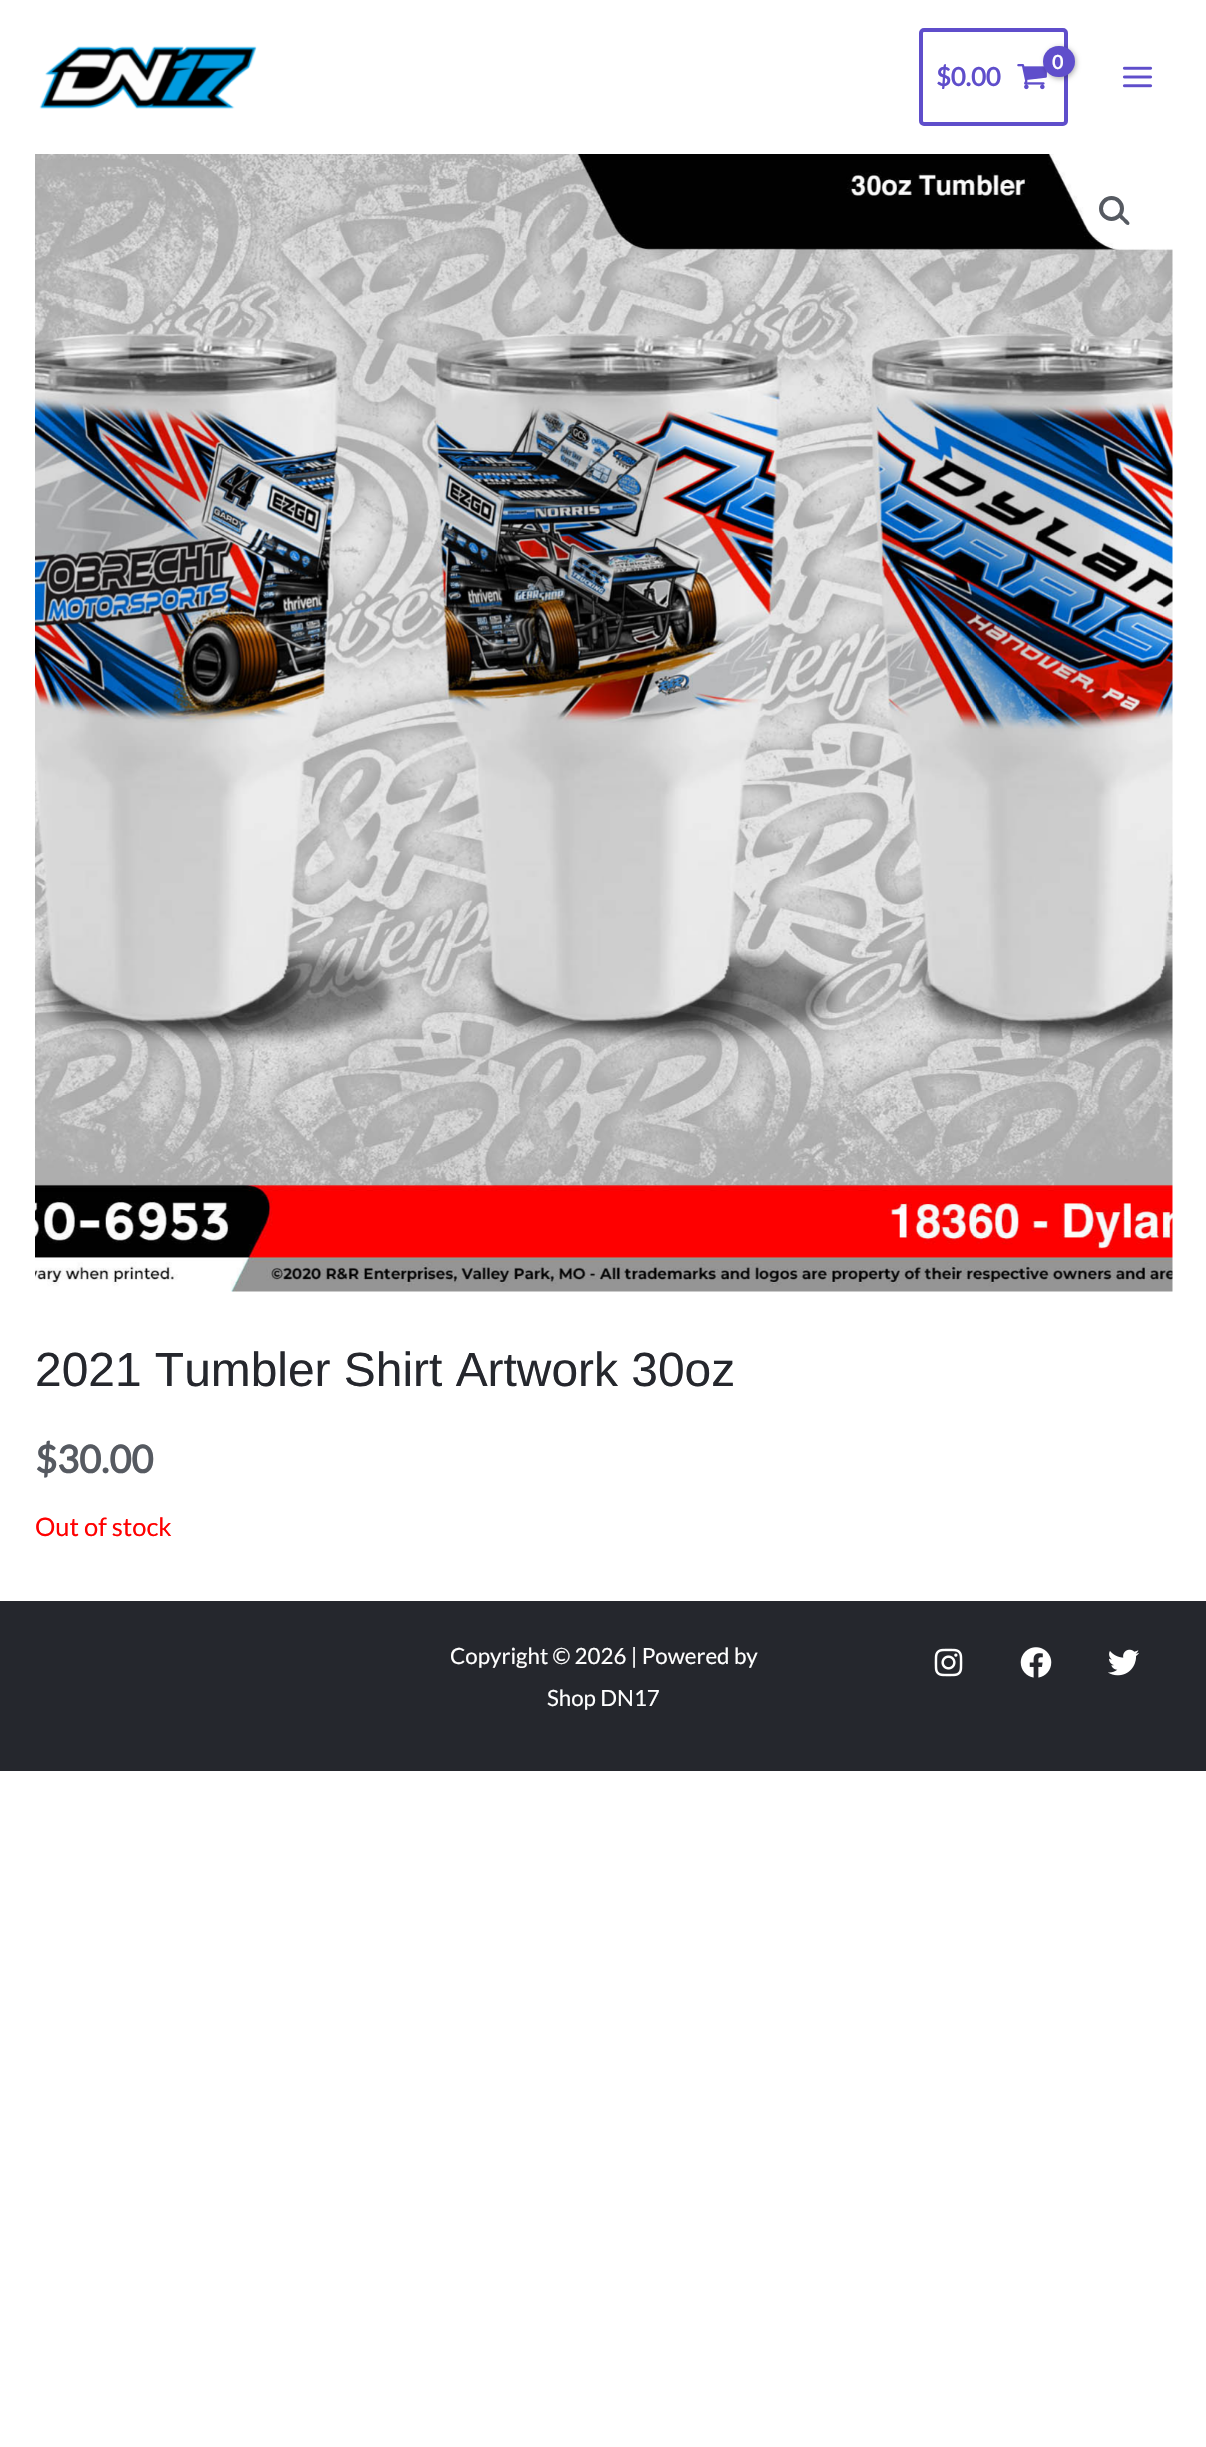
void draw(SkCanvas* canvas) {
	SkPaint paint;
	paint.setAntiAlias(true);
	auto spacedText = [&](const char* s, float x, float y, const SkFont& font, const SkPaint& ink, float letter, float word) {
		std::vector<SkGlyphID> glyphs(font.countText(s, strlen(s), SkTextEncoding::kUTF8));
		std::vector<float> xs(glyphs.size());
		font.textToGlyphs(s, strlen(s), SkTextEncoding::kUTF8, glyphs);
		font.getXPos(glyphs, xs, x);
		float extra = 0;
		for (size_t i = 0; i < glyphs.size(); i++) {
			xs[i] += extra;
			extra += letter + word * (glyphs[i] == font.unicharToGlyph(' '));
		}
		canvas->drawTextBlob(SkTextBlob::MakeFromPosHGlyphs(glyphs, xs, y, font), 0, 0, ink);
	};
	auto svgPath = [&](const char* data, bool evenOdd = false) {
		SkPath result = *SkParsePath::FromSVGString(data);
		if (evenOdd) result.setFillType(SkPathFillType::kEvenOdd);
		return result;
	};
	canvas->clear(0xffffffff);
	canvas->drawImageRect(SkImages::DeferredFromEncodedData(SkData::MakeFromFileName("img1.png")), SkRect::MakeXYWH(39, 46, 218, 63), SkSamplingOptions());
	paint.setStroke(true);
	paint.setStrokeWidth(4);
	paint.setColor(0xff5f4ecb);
	canvas->drawRoundRect(SkRect::MakeXYWH(921, 30, 145, 94), 3, 3, paint);
	canvas->drawImageRect(SkImages::DeferredFromEncodedData(SkData::MakeFromFileName("img2.png")), SkRect::MakeXYWH(1017, 64, 30, 26), SkSamplingOptions());
	paint.setStroke(false);
	paint.setColor(0x4d000000);
	paint.setMaskFilter(SkMaskFilter::MakeBlur(kNormal_SkBlurStyle, 2.5));
	canvas->drawRoundRect(SkRect::MakeXYWH(1045, 47, 31, 32), 15.5, 15.5, paint);
	paint.setMaskFilter(nullptr);
	paint.setColor(0xff5f4ecb);
	canvas->drawRoundRect(SkRect::MakeXYWH(1043, 46, 32, 31), 15.5, 15.5, paint);
	SkFont f1(fontMgr->matchFamilyStyle("Lato", SkFontStyle::Bold()), 19);
	f1.setSubpixel(true);
	paint.setColor(0xffffffff);
	spacedText("0", 1052, 69, f1, paint, -1, 0);
	SkFont f2(fontMgr->matchFamilyStyle("Lato", SkFontStyle::Bold()), 25.5);
	f2.setSubpixel(true);
	paint.setColor(0xff5f4ecb);
	canvas->drawString("$0.00", 936, 86, f2, paint);
	canvas->drawImageRect(SkImages::DeferredFromEncodedData(SkData::MakeFromFileName("img3.png")), SkRect::MakeXYWH(1122, 66, 31, 22), SkSamplingOptions());
	canvas->drawImageRect(SkImages::DeferredFromEncodedData(SkData::MakeFromFileName("img4.png")), SkRect::MakeXYWH(35, 154, 1138, 1138), SkSamplingOptions());
	paint.setColor(0xffffffff);
	canvas->drawCircle(1114.5, 211.5, 31.5, paint);
	paint.setStroke(true);
	paint.setColor(0xff565a61);
	canvas->drawCircle(1111.5, 208.5, 10.5, paint);
	paint.setStroke(false);
	canvas->drawPath(svgPath("M1119.5 215C1121.5 213 1124.5 217.5 1125.5 218.5C1126.5 219.5 1131 222.5 1129 224.5C1127 226.5 1124 222 1123 221C1122 220 1117.5 217 1119.5 215Z"), paint);
	SkFont f3(fontMgr->matchFamilyStyle("Liberation Sans", SkFontStyle::Normal()), 47.9);
	f3.setSubpixel(true);
	paint.setColor(0xff25272d);
	canvas->drawString("2021 Tumbler Shirt Artwork 30oz", 35, 1386, f3, paint);
	SkFont f4(fontMgr->matchFamilyStyle("Lato", SkFontStyle::Bold()), 38);
	f4.setSubpixel(true);
	paint.setColor(0xff565a61);
	canvas->drawString("$30.00", 35, 1473, f4, paint);
	SkFont f5(fontMgr->matchFamilyStyle("Lato", SkFontStyle::Normal()), 25.5);
	f5.setSubpixel(true);
	paint.setColor(0xffff0000);
	canvas->drawString("Out of stock", 35, 1536, f5, paint);
	paint.setColor(0xff25272d);
	canvas->drawRect(SkRect::MakeXYWH(0, 1601, 1206, 170), paint);
	SkFont f6(fontMgr->matchFamilyStyle("Lato", SkFontStyle::Normal()), 22.3);
	f6.setSubpixel(true);
	paint.setColor(0xffffffff);
	canvas->drawString("Copyright © 2026 | Powered by", 450, 1664, f6, paint);
	canvas->drawString("Shop DN17", 547, 1706, f6, paint);
	canvas->drawImageRect(SkImages::DeferredFromEncodedData(SkData::MakeFromFileName("img5.png")), SkRect::MakeXYWH(934, 1648, 29, 29), SkSamplingOptions());
	canvas->drawImageRect(SkImages::DeferredFromEncodedData(SkData::MakeFromFileName("img6.png")), SkRect::MakeXYWH(1020, 1647, 32, 31), SkSamplingOptions());
	canvas->drawImageRect(SkImages::DeferredFromEncodedData(SkData::MakeFromFileName("img7.png")), SkRect::MakeXYWH(1108, 1649, 31, 27), SkSamplingOptions());
}
